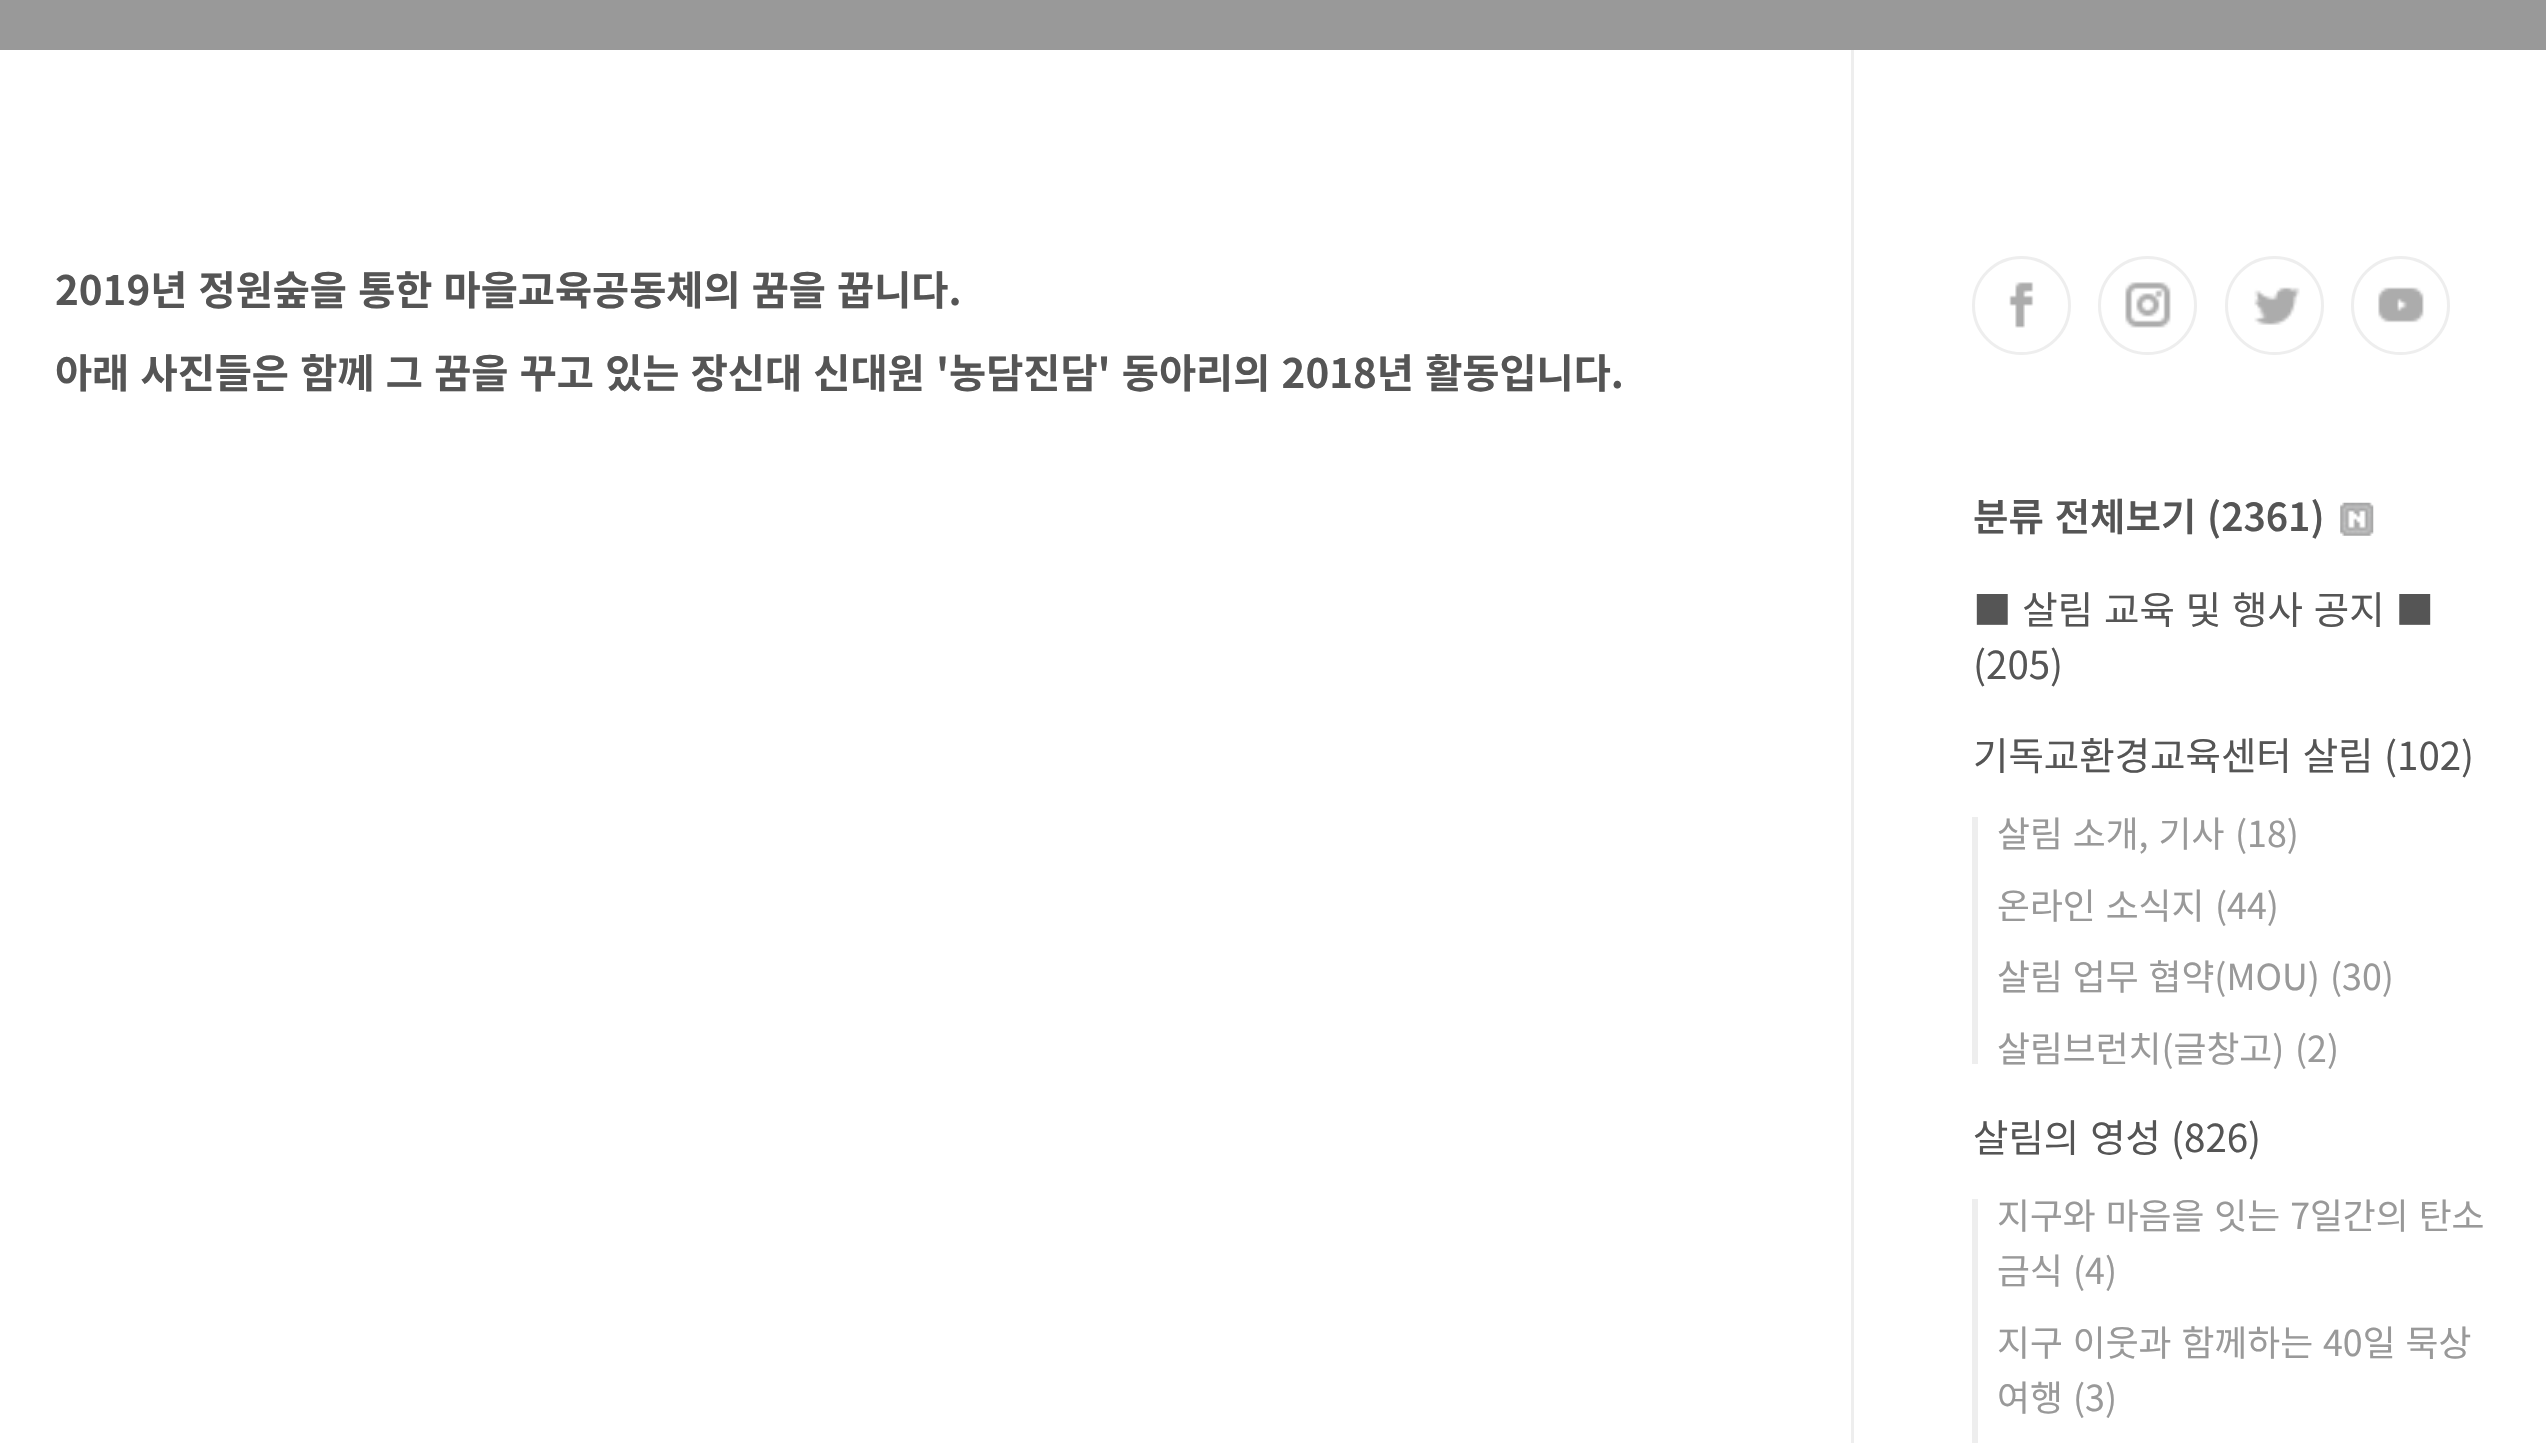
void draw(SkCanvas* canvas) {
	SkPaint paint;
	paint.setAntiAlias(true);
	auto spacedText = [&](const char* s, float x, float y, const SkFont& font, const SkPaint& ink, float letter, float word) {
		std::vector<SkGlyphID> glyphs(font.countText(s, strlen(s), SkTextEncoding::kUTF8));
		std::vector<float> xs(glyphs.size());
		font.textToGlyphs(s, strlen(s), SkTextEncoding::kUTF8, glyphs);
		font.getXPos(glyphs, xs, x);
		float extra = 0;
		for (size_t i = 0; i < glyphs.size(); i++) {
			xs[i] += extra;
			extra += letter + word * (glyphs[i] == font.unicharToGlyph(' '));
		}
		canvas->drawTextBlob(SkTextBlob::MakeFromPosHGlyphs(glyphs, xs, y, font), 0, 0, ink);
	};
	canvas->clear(0xffffffff);
	paint.setColor(0xff999999);
	canvas->drawRect(SkRect::MakeXYWH(0, 0, 2546, 50), paint);
	SkFont f1(fontMgr->matchFamilyStyle("Noto Sans KR", SkFontStyle::Bold()), 40.35);
	f1.setSubpixel(true);
	paint.setColor(0xff555555);
	spacedText("2019년 정원숲을 통한 마을교육공동체의 꿈을 꿉니다.", 55, 305, f1, paint, 0, 2);
	spacedText("아래 사진들은 함께 그 꿈을 꾸고 있는 장신대 신대원 '농담진담' 동아리의 2018년 활동입니다.", 55, 388, f1, paint, 0, 2.1);
	paint.setColor(0xffeeeeee);
	canvas->drawRect(SkRect::MakeXYWH(1851, 50, 3, 1393), paint);
	canvas->drawImageRect(SkImages::DeferredFromEncodedData(SkData::MakeFromFileName("img1.png")), SkRect::MakeXYWH(2009, 282, 25, 46), SkSamplingOptions());
	paint.setStroke(true);
	paint.setStrokeWidth(3);
	canvas->drawCircle(2021.5, 305.5, 48, paint);
	canvas->drawImageRect(SkImages::DeferredFromEncodedData(SkData::MakeFromFileName("img2.png")), SkRect::MakeXYWH(2125, 282, 46, 46), SkSamplingOptions());
	canvas->drawCircle(2147.5, 305.5, 48, paint);
	canvas->drawImageRect(SkImages::DeferredFromEncodedData(SkData::MakeFromFileName("img3.png")), SkRect::MakeXYWH(2254, 287, 46, 38), SkSamplingOptions());
	canvas->drawCircle(2274.5, 305.5, 48, paint);
	canvas->drawImageRect(SkImages::DeferredFromEncodedData(SkData::MakeFromFileName("img4.png")), SkRect::MakeXYWH(2378, 287, 46, 36), SkSamplingOptions());
	canvas->drawCircle(2400.5, 305.5, 48, paint);
	SkFont f2(fontMgr->matchFamilyStyle("Noto Sans KR", SkFontStyle(600, SkFontStyle::kNormal_Width, SkFontStyle::kUpright_Slant)), 38.5);
	f2.setSubpixel(true);
	paint.setStroke(false);
	paint.setColor(0xff555555);
	spacedText("분류 전체보기", 1973, 531, f2, paint, 0, 2.1);
	canvas->drawString("(2361)", 2207, 531, f2, paint);
	canvas->drawImageRect(SkImages::DeferredFromEncodedData(SkData::MakeFromFileName("img5.png")), SkRect::MakeXYWH(2340, 502, 34, 34), SkSamplingOptions());
	SkFont f3(fontMgr->matchFamilyStyle("Noto Sans KR", SkFontStyle::Normal()), 38.5);
	f3.setSubpixel(true);
	spacedText("■ 살림 교육 및 행사 공지 ■", 1973, 624, f3, paint, 0, 2.25);
	canvas->drawString("(205)", 1973, 679, f3, paint);
	spacedText("기독교환경교육센터 살림", 1973, 770, f3, paint, 0, 2.25);
	canvas->drawString("(102)", 2384, 770, f3, paint);
	paint.setColor(0xffeeeeee);
	canvas->drawRect(SkRect::MakeXYWH(1972, 817, 6, 247), paint);
	SkFont f4(fontMgr->matchFamilyStyle("Noto Sans KR", SkFontStyle::Normal()), 35.75);
	f4.setSubpixel(true);
	paint.setColor(0xff999999);
	spacedText("살림 소개, 기사", 1997, 847, f4, paint, 0, 2);
	canvas->drawString("(18)", 2235, 847, f4, paint);
	spacedText("온라인 소식지", 1997, 919, f4, paint, 0, 2);
	canvas->drawString("(44)", 2215, 919, f4, paint);
	spacedText("살림 업무 협약(MOU)", 1997, 990, f4, paint, 0, 2);
	canvas->drawString("(30)", 2330, 990, f4, paint);
	canvas->drawString("살림브런치(글창고)", 1997, 1062, f4, paint);
	canvas->drawString("(2)", 2295, 1062, f4, paint);
	paint.setColor(0xff555555);
	spacedText("살림의 영성", 1973, 1152, f3, paint, 0, 2.25);
	canvas->drawString("(826)", 2171, 1152, f3, paint);
	paint.setColor(0xffeeeeee);
	canvas->drawRect(SkRect::MakeXYWH(1972, 1199, 6, 244), paint);
	paint.setColor(0xff999999);
	spacedText("지구와 마음을 잇는 7일간의 탄소", 1997, 1229, f4, paint, 0, 2);
	canvas->drawString("금식", 1997, 1284, f4, paint);
	canvas->drawString("(4)", 2073, 1284, f4, paint);
	spacedText("지구 이웃과 함께하는 40일 묵상", 1997, 1356, f4, paint, 0, 2);
	canvas->drawString("여행", 1997, 1411, f4, paint);
	canvas->drawString("(3)", 2073, 1411, f4, paint);
}
